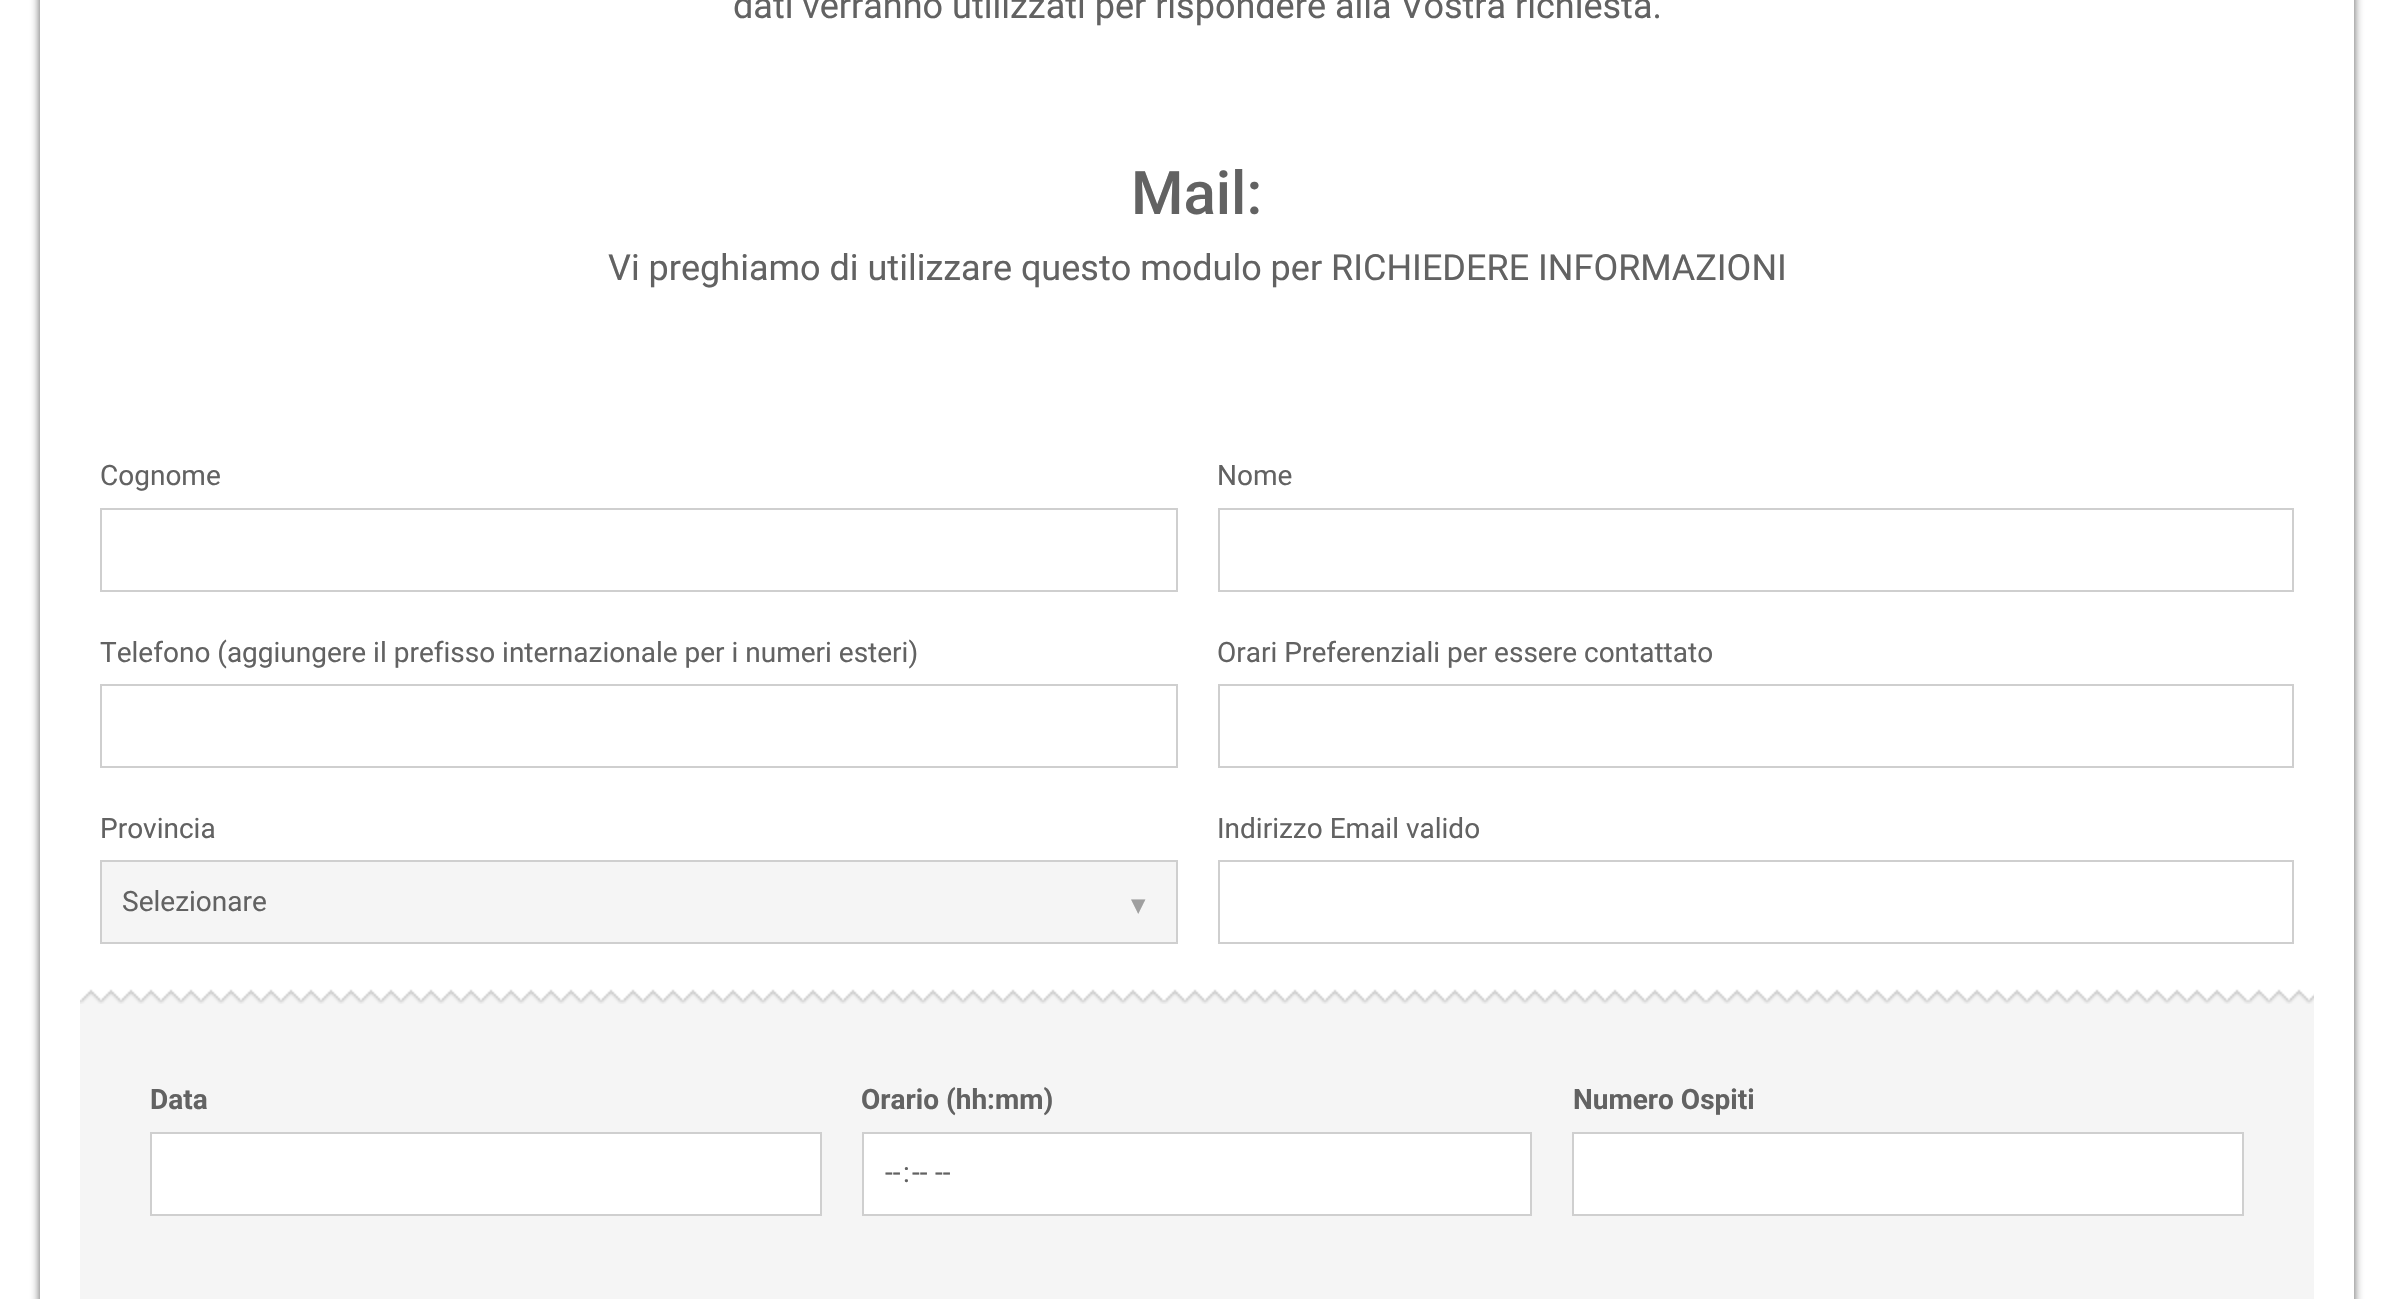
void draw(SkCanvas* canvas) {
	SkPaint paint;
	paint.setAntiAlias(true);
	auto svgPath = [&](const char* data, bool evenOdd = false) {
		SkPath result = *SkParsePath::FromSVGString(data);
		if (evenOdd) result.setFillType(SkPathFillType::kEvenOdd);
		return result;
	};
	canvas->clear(0xffffffff);
	canvas->save();
	canvas->clipPath(svgPath("M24 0H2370V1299H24ZM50-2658H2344C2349.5-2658 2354-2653.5 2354-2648V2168H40V-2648C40-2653.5 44.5-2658 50-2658Z", true), true);
	paint.setColor(0xa6000000);
	paint.setMaskFilter(SkMaskFilter::MakeBlur(kNormal_SkBlurStyle, 5));
	canvas->drawRoundRect(SkRect::MakeXYWH(40, -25, 2314, 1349), 10, 10, paint);
	paint.setMaskFilter(nullptr);
	canvas->restore();
	SkFont f1(fontMgr->matchFamilyStyle("Roboto", SkFontStyle::Normal()), 36);
	f1.setSubpixel(true);
	paint.setColor(0xff626262);
	canvas->drawString("dati verranno utilizzati per rispondere alla Vostra richiesta.", 733, 18, f1, paint);
	SkFont f2(fontMgr->matchFamilyStyle("Roboto", SkFontStyle(500, SkFontStyle::kNormal_Width, SkFontStyle::kUpright_Slant)), 60);
	f2.setSubpixel(true);
	canvas->drawString("Mail:", 1131, 214, f2, paint);
	canvas->drawString("Vi preghiamo di utilizzare questo modulo per RICHIEDERE INFORMAZIONI", 608, 280, f1, paint);
	SkFont f3(fontMgr->matchFamilyStyle("Roboto", SkFontStyle::Normal()), 28);
	f3.setSubpixel(true);
	canvas->drawString("Cognome", 100, 485, f3, paint);
	paint.setStroke(true);
	paint.setStrokeWidth(2);
	paint.setColor(0xffcfcfcf);
	canvas->drawRect(SkRect::MakeXYWH(101, 509, 1076, 82), paint);
	paint.setStroke(false);
	paint.setColor(0xff626262);
	canvas->drawString("Nome", 1217, 485, f3, paint);
	paint.setStroke(true);
	paint.setColor(0xffcfcfcf);
	canvas->drawRect(SkRect::MakeXYWH(1219, 509, 1074, 82), paint);
	paint.setStroke(false);
	paint.setColor(0xff626262);
	canvas->drawString("Telefono (aggiungere il prefisso internazionale per i numeri esteri)", 100, 662, f3, paint);
	paint.setStroke(true);
	paint.setColor(0xffcfcfcf);
	canvas->drawRect(SkRect::MakeXYWH(101, 685, 1076, 82), paint);
	paint.setStroke(false);
	paint.setColor(0xff626262);
	canvas->drawString("Orari Preferenziali per essere contattato", 1217, 662, f3, paint);
	paint.setStroke(true);
	paint.setColor(0xffcfcfcf);
	canvas->drawRect(SkRect::MakeXYWH(1219, 685, 1074, 82), paint);
	paint.setStroke(false);
	paint.setColor(0xff626262);
	canvas->drawString("Provincia", 100, 838, f3, paint);
	paint.setColor(0xfff5f5f5);
	canvas->drawRect(SkRect::MakeXYWH(101, 861, 1076, 82), paint);
	paint.setStroke(true);
	paint.setColor(0xffcfcfcf);
	canvas->drawRect(SkRect::MakeXYWH(101, 861, 1076, 82), paint);
	paint.setStroke(false);
	paint.setColor(0xff626262);
	canvas->drawString("Selezionare", 122, 911, f3, paint);
	SkFont f4(fontMgr->matchFamilyStyle("DejaVu Sans Mono", SkFontStyle::Normal()), 24);
	f4.setSubpixel(true);
	paint.setColor(0xff9f9f9f);
	canvas->drawString("▼", 1131, 913, f4, paint);
	paint.setColor(0xff626262);
	canvas->drawString("Indirizzo Email valido", 1217, 838, f3, paint);
	paint.setStroke(true);
	paint.setColor(0xffcfcfcf);
	canvas->drawRect(SkRect::MakeXYWH(1219, 861, 1074, 82), paint);
	paint.setStroke(false);
	paint.setColor(0xfff5f5f5);
	canvas->drawRect(SkRect::MakeXYWH(80, 989, 2234, 310), paint);
	canvas->drawImageRect(SkImages::DeferredFromEncodedData(SkData::MakeFromFileName("img1.png")), SkRect::MakeXYWH(80, 988, 2234, 16), SkSamplingOptions());
	SkFont f5(fontMgr->matchFamilyStyle("Roboto", SkFontStyle::Bold()), 28);
	f5.setSubpixel(true);
	paint.setColor(0xff626262);
	canvas->drawString("Data", 150, 1109, f5, paint);
	paint.setColor(0xffffffff);
	canvas->drawRect(SkRect::MakeXYWH(151, 1133, 670, 82), paint);
	paint.setStroke(true);
	paint.setColor(0xffcfcfcf);
	canvas->drawRect(SkRect::MakeXYWH(151, 1133, 670, 82), paint);
	paint.setStroke(false);
	paint.setColor(0xff626262);
	canvas->drawString("Orario (hh:mm)", 861, 1109, f5, paint);
	paint.setColor(0xffffffff);
	canvas->drawRect(SkRect::MakeXYWH(863, 1133, 668, 82), paint);
	paint.setStroke(true);
	paint.setColor(0xffcfcfcf);
	canvas->drawRect(SkRect::MakeXYWH(863, 1133, 668, 82), paint);
	paint.setStroke(false);
	paint.setColor(0xff626262);
	canvas->drawString("--", 885, 1182, f3, paint);
	canvas->drawString(":", 903, 1182, f3, paint);
	canvas->drawString("--", 912, 1182, f3, paint);
	canvas->drawString("--", 935, 1182, f3, paint);
	canvas->drawString("Numero Ospiti", 1573, 1109, f5, paint);
	paint.setColor(0xffffffff);
	canvas->drawRect(SkRect::MakeXYWH(1573, 1133, 670, 82), paint);
	paint.setStroke(true);
	paint.setColor(0xffcfcfcf);
	canvas->drawRect(SkRect::MakeXYWH(1573, 1133, 670, 82), paint);
}
